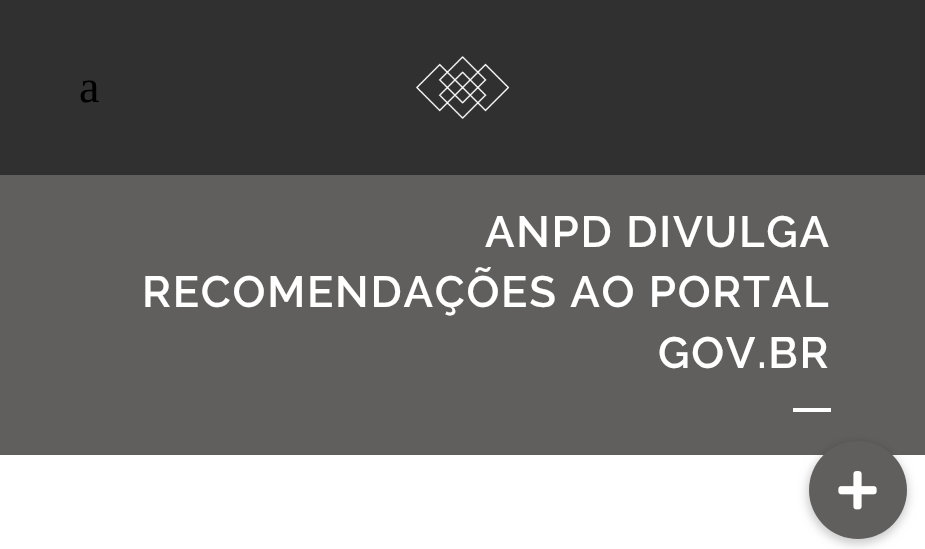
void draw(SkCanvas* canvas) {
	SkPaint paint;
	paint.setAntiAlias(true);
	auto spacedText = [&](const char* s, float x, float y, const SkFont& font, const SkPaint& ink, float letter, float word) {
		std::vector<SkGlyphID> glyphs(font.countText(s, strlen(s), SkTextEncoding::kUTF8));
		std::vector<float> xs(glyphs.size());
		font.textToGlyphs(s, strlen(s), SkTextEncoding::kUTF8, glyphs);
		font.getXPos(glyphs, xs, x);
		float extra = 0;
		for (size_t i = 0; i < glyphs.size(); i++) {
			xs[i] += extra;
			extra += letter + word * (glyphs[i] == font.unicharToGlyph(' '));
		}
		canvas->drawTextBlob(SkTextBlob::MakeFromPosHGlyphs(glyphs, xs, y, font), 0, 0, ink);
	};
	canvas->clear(0xffffffff);
	paint.setColor(0xff303030);
	canvas->drawRect(SkRect::MakeXYWH(0, 0, 925, 175), paint);
	SkFont f1(fontMgr->matchFamilyStyle("Liberation Serif", SkFontStyle::Normal()), 46);
	f1.setSubpixel(true);
	paint.setColor(0xff000000);
	canvas->drawString("a", 79, 102, f1, paint);
	canvas->drawImageRect(SkImages::DeferredFromEncodedData(SkData::MakeFromFileName("img1.png")), SkRect::MakeXYWH(416, 56, 94, 63), SkSamplingOptions());
	paint.setColor(0xff605f5e);
	canvas->drawRect(SkRect::MakeXYWH(0, 175, 925, 280), paint);
	SkFont f2(fontMgr->matchFamilyStyle("Raleway", SkFontStyle(600, SkFontStyle::kNormal_Width, SkFontStyle::kUpright_Slant)), 43.75);
	f2.setSubpixel(true);
	paint.setColor(0xffffffff);
	spacedText("ANPD DIVULGA", 485, 247, f2, paint, 1.75, 0);
	spacedText("RECOMENDAÇÕES AO PORTAL", 142, 307, f2, paint, 1.75, 0);
	spacedText("GOV.BR", 658, 368, f2, paint, 1.75, 0);
	canvas->drawRect(SkRect::MakeXYWH(793, 408, 38, 4), paint);
	paint.setColor(0x33000000);
	paint.setMaskFilter(SkMaskFilter::MakeBlur(kNormal_SkBlurStyle, 5));
	canvas->drawRoundRect(SkRect::MakeXYWH(807, 443, 101, 101), 50.5, 50.5, paint);
	paint.setMaskFilter(nullptr);
	paint.setColor(0xff605f5e);
	canvas->drawCircle(858, 490, 49, paint);
	canvas->drawImageRect(SkImages::DeferredFromEncodedData(SkData::MakeFromFileName("img2.png")), SkRect::MakeXYWH(838, 471, 39, 39), SkSamplingOptions());
}
